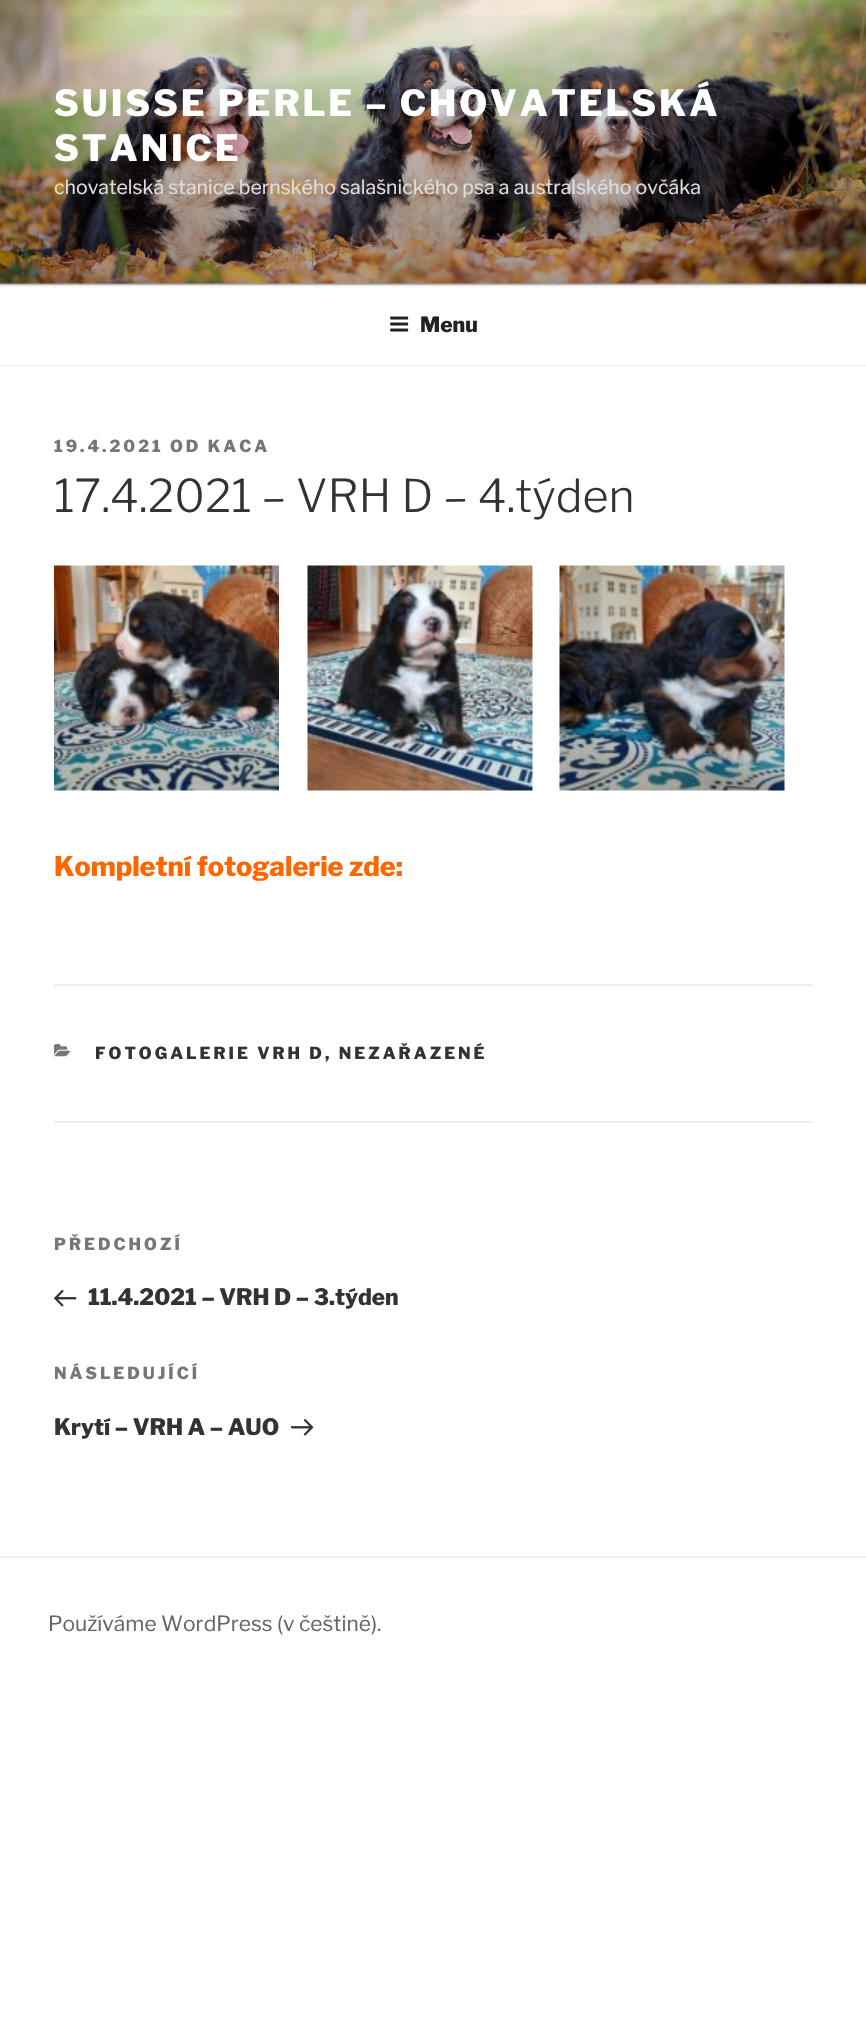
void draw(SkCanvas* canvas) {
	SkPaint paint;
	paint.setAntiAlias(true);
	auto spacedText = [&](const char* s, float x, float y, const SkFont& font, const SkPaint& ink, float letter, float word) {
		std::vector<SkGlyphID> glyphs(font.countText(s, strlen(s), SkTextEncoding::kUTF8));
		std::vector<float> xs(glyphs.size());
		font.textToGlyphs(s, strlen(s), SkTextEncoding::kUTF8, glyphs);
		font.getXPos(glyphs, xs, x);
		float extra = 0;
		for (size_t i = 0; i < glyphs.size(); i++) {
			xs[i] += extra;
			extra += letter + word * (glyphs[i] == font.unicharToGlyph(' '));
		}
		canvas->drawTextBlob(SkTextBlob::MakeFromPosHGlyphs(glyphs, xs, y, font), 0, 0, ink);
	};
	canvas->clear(0xffffffff);
	paint.setColor(0xfffafafa);
	canvas->drawRect(SkRect::MakeXYWH(0, 283, 866, 2), paint);
	canvas->drawImageRect(SkImages::DeferredFromEncodedData(SkData::MakeFromFileName("img1.png")), SkRect::MakeXYWH(0, 0, 866, 284), SkSamplingOptions());
	{
		const SkColor colors[] = {0x00000000, 0x4d000000, 0x4d000000};
		const float stops[] = {0, 0.75, 1};
		const SkPoint ends[] = {{434, 0}, {434, 285}};
		paint.setShader(SkGradientShader::MakeLinear(ends, colors, stops, 3, SkTileMode::kClamp));
		paint.setAlpha(255);
	}
	canvas->drawRect(SkRect::MakeXYWH(0, 15, 866, 270), paint);
	SkFont f1(fontMgr->matchFamilyStyle("Libre Franklin", SkFontStyle(100, SkFontStyle::kNormal_Width, SkFontStyle::kUpright_Slant)), 36);
	f1.setSubpixel(true);
	paint.setShader(nullptr);
	paint.setColor(0xffffffff);
	spacedText("SUISSE PERLE – CHOVATELSKÁ", 54, 116, f1, paint, 2.9, 0);
	spacedText("STANICE", 54, 161, f1, paint, 2.9, 0);
	SkFont f2(fontMgr->matchFamilyStyle("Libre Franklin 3", SkFontStyle(100, SkFontStyle::kNormal_Width, SkFontStyle::kUpright_Slant)), 19.5);
	f2.setSubpixel(true);
	paint.setColor(0xffe1dedd);
	canvas->drawString("chovatelská stanice bernského salašnického psa a australského ovčáka", 54, 194, f2, paint);
	paint.setColor(0xffeeeeee);
	canvas->drawRect(SkRect::MakeXYWH(0, 285, 866, 2), paint);
	canvas->drawRect(SkRect::MakeXYWH(0, 365, 866, 1), paint);
	canvas->drawImageRect(SkImages::DeferredFromEncodedData(SkData::MakeFromFileName("img2.png")), SkRect::MakeXYWH(390, 316, 19, 16), SkSamplingOptions());
	SkFont f3(fontMgr->matchFamilyStyle("Libre Franklin", SkFontStyle(100, SkFontStyle::kNormal_Width, SkFontStyle::kUpright_Slant)), 21);
	f3.setSubpixel(true);
	paint.setColor(0xff222222);
	canvas->drawString("Menu", 420, 332, f3, paint);
	SkFont f4(fontMgr->matchFamilyStyle("Libre Franklin", SkFontStyle(100, SkFontStyle::kNormal_Width, SkFontStyle::kUpright_Slant)), 16.5);
	f4.setSubpixel(true);
	paint.setColor(0xff767676);
	spacedText("19.4.2021 OD KACA", 54, 452, f4, paint, 3, 0);
	SkFont f5(fontMgr->matchFamilyStyle("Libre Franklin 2", SkFontStyle(100, SkFontStyle::kNormal_Width, SkFontStyle::kUpright_Slant)), 45);
	f5.setSubpixel(true);
	paint.setColor(0xff333333);
	canvas->drawString("17.4.2021 – VRH D – 4.týden", 54, 512, f5, paint);
	canvas->drawImageRect(SkImages::DeferredFromEncodedData(SkData::MakeFromFileName("img3.png")), SkRect::MakeXYWH(54, 565, 225, 226), SkSamplingOptions());
	canvas->drawImageRect(SkImages::DeferredFromEncodedData(SkData::MakeFromFileName("img4.png")), SkRect::MakeXYWH(307, 565, 226, 226), SkSamplingOptions());
	canvas->drawImageRect(SkImages::DeferredFromEncodedData(SkData::MakeFromFileName("img5.png")), SkRect::MakeXYWH(559, 565, 226, 226), SkSamplingOptions());
	SkFont f6(fontMgr->matchFamilyStyle("Libre Franklin", SkFontStyle(100, SkFontStyle::kNormal_Width, SkFontStyle::kUpright_Slant)), 27);
	f6.setSubpixel(true);
	paint.setColor(0xffff6600);
	canvas->drawString("Kompletní fotogalerie zde:", 54, 876, f6, paint);
	paint.setColor(0xffeeeeee);
	canvas->drawRect(SkRect::MakeXYWH(54, 984, 759, 2), paint);
	canvas->drawRect(SkRect::MakeXYWH(54, 1121, 759, 2), paint);
	canvas->drawImageRect(SkImages::DeferredFromEncodedData(SkData::MakeFromFileName("img6.png")), SkRect::MakeXYWH(54, 1044, 17, 13), SkSamplingOptions());
	paint.setColor(0xff333333);
	spacedText("FOTOGALERIE VRH D, NEZAŘAZENÉ", 95, 1059, f4, paint, 3, 0);
	paint.setColor(0xff767676);
	spacedText("PŘEDCHOZÍ", 54, 1250, f4, paint, 3, 0);
	canvas->drawImageRect(SkImages::DeferredFromEncodedData(SkData::MakeFromFileName("img7.png")), SkRect::MakeXYWH(54, 1289, 23, 18), SkSamplingOptions());
	SkFont f7(fontMgr->matchFamilyStyle("Libre Franklin", SkFontStyle(100, SkFontStyle::kNormal_Width, SkFontStyle::kUpright_Slant)), 22.5);
	f7.setSubpixel(true);
	paint.setColor(0xff333333);
	canvas->drawString("11.4.2021 – VRH D – 3.týden", 88, 1305, f7, paint);
	paint.setColor(0xff767676);
	spacedText("NÁSLEDUJÍCÍ", 54, 1379, f4, paint, 3, 0);
	paint.setColor(0xff333333);
	canvas->drawString("Krytí – VRH A – AUO", 54, 1435, f7, paint);
	canvas->drawImageRect(SkImages::DeferredFromEncodedData(SkData::MakeFromFileName("img8.png")), SkRect::MakeXYWH(291, 1418, 23, 18), SkSamplingOptions());
	paint.setColor(0xffeeeeee);
	canvas->drawRect(SkRect::MakeXYWH(0, 1556, 866, 2), paint);
	SkFont f8(fontMgr->matchFamilyStyle("Libre Franklin 3", SkFontStyle(100, SkFontStyle::kNormal_Width, SkFontStyle::kUpright_Slant)), 21);
	f8.setSubpixel(true);
	paint.setColor(0xff666666);
	canvas->drawString("Používáme WordPress (v češtině).", 48, 1631, f8, paint);
}
